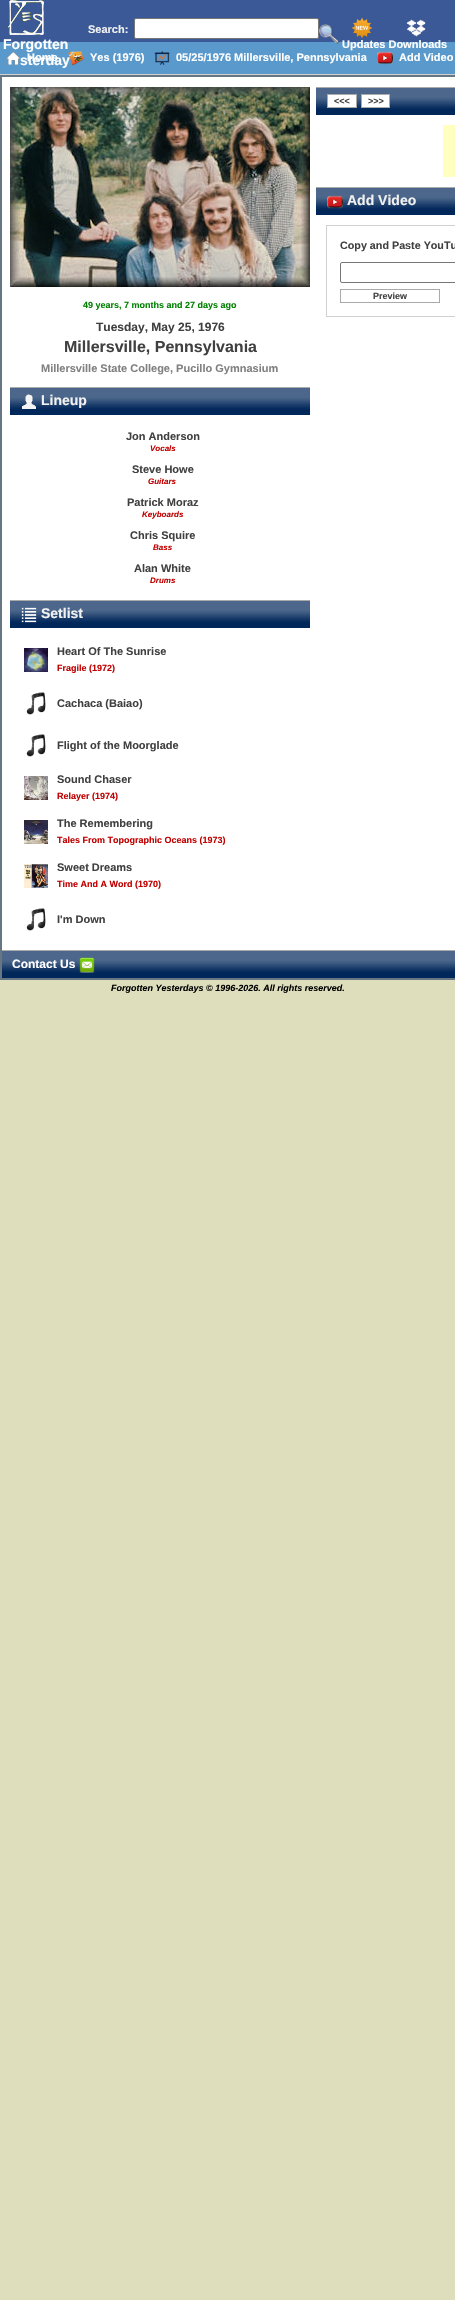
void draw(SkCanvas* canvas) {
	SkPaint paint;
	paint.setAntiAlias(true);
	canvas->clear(0xffdedebd);
	paint.setColor(0xff3b5997);
	canvas->drawRect(SkRect::MakeXYWH(0, 0, 455, 42), paint);
	SkFont f1(fontMgr->matchFamilyStyle("Liberation Sans", SkFontStyle::Bold()), 11);
	f1.setSubpixel(true);
	paint.setColor(0xfff1f1f1);
	canvas->drawString("Search:", 88, 33, f1, paint);
	paint.setColor(0xffffffff);
	canvas->drawRoundRect(SkRect::MakeXYWH(134.5, 18.5, 184, 20), 1.5, 1.5, paint);
	paint.setStroke(true);
	paint.setStrokeWidth(1);
	paint.setColor(0xff767676);
	canvas->drawRoundRect(SkRect::MakeXYWH(134.5, 18.5, 184, 20), 1.5, 1.5, paint);
	paint.setStroke(false);
	paint.setColor(0xff5a99cc);
	canvas->drawRect(SkRect::MakeXYWH(0, 42, 455, 32), paint);
	canvas->drawImageRect(SkImages::DeferredFromEncodedData(SkData::MakeFromFileName("img1.png")), SkRect::MakeXYWH(319, 24, 20, 20), SkSamplingOptions());
	canvas->drawImageRect(SkImages::DeferredFromEncodedData(SkData::MakeFromFileName("img2.png")), SkRect::MakeXYWH(406, 19, 20, 18), SkSamplingOptions());
	canvas->drawImageRect(SkImages::DeferredFromEncodedData(SkData::MakeFromFileName("img3.png")), SkRect::MakeXYWH(8, 0, 36, 35), SkSamplingOptions());
	SkFont f2(fontMgr->matchFamilyStyle("Liberation Sans", SkFontStyle::Bold()), 14);
	f2.setSubpixel(true);
	paint.setColor(0xffffffff);
	canvas->drawString("Forgotten", 3, 49, f2, paint);
	canvas->drawString("sterday", 20, 65, f2, paint);
	canvas->drawImageRect(SkImages::DeferredFromEncodedData(SkData::MakeFromFileName("img4.png")), SkRect::MakeXYWH(352, 18, 20, 20), SkSamplingOptions());
	canvas->drawString("Updates Downloads", 342, 48, f1, paint);
	paint.setColor(0xffd0d0d0);
	canvas->drawRect(SkRect::MakeXYWH(0, 74, 455, 1), paint);
	canvas->drawImageRect(SkImages::DeferredFromEncodedData(SkData::MakeFromFileName("img5.png")), SkRect::MakeXYWH(6, 52, 14, 13), SkSamplingOptions());
	paint.setColor(0xffffffff);
	canvas->drawString("Home", 27, 61, f1, paint);
	canvas->drawImageRect(SkImages::DeferredFromEncodedData(SkData::MakeFromFileName("img6.png")), SkRect::MakeXYWH(68, 51, 16, 15), SkSamplingOptions());
	canvas->drawString("Yes (1976)", 90, 61, f1, paint);
	canvas->drawImageRect(SkImages::DeferredFromEncodedData(SkData::MakeFromFileName("img7.png")), SkRect::MakeXYWH(154, 51, 16, 14), SkSamplingOptions());
	canvas->drawString("05/25/1976 Millersville, Pennsylvania", 176, 61, f1, paint);
	canvas->drawImageRect(SkImages::DeferredFromEncodedData(SkData::MakeFromFileName("img8.png")), SkRect::MakeXYWH(377, 51, 16, 14), SkSamplingOptions());
	canvas->drawString("Add Video", 399, 61, f1, paint);
	canvas->drawRect(SkRect::MakeXYWH(2, 77, 453, 873), paint);
	paint.setStroke(true);
	paint.setStrokeWidth(2);
	paint.setColor(0xff677683);
	canvas->drawRect(SkRect::MakeXYWH(1, 76, 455, 903), paint);
	canvas->drawImageRect(SkImages::DeferredFromEncodedData(SkData::MakeFromFileName("img9.png")), SkRect::MakeXYWH(316, 87, 139, 28), SkSamplingOptions());
	paint.setStroke(false);
	paint.setColor(0xffffffff);
	canvas->drawRect(SkRect::MakeXYWH(327.5, 94.5, 29, 13), paint);
	paint.setStroke(true);
	paint.setStrokeWidth(1);
	paint.setColor(0xffaaaaaa);
	canvas->drawRect(SkRect::MakeXYWH(327.5, 94.5, 29, 13), paint);
	SkFont f3(fontMgr->matchFamilyStyle("Liberation Sans", SkFontStyle::Bold()), 9);
	f3.setSubpixel(true);
	paint.setStroke(false);
	paint.setColor(0xff404040);
	canvas->drawString("<<<", 334, 104, f3, paint);
	paint.setColor(0xffffffff);
	canvas->drawRect(SkRect::MakeXYWH(361.5, 94.5, 28, 13), paint);
	paint.setStroke(true);
	paint.setColor(0xffaaaaaa);
	canvas->drawRect(SkRect::MakeXYWH(361.5, 94.5, 28, 13), paint);
	paint.setStroke(false);
	paint.setColor(0xff404040);
	canvas->drawString(">>>", 368, 104, f3, paint);
	paint.setColor(0xffffffc0);
	canvas->drawRect(SkRect::MakeXYWH(443, 125, 12, 52), paint);
	canvas->drawImageRect(SkImages::DeferredFromEncodedData(SkData::MakeFromFileName("img9.png")), SkRect::MakeXYWH(316, 187, 139, 28), SkSamplingOptions());
	canvas->drawImageRect(SkImages::DeferredFromEncodedData(SkData::MakeFromFileName("img10.png")), SkRect::MakeXYWH(327, 195, 16, 14), SkSamplingOptions());
	paint.setColor(0xfff1f1f1);
	canvas->drawString("Add Video", 347, 205, f2, paint);
	paint.setStroke(true);
	paint.setColor(0xffd0d0d0);
	canvas->drawRect(SkRect::MakeXYWH(326.5, 225.5, 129, 91), paint);
	SkFont f4(fontMgr->matchFamilyStyle("Liberation Sans", SkFontStyle::Bold()), 10.75);
	f4.setSubpixel(true);
	paint.setStroke(false);
	paint.setColor(0xff404040);
	canvas->drawString("Copy and Paste YouTu", 340, 249, f4, paint);
	paint.setStroke(true);
	paint.setColor(0xff767676);
	canvas->drawRoundRect(SkRect::MakeXYWH(340.5, 262.5, 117, 20), 1.5, 1.5, paint);
	paint.setColor(0xffaaaaaa);
	canvas->drawRect(SkRect::MakeXYWH(340.5, 289.5, 99, 13), paint);
	paint.setStroke(false);
	paint.setColor(0xff404040);
	canvas->drawString("Preview", 373, 299, f3, paint);
	canvas->drawImageRect(SkImages::DeferredFromEncodedData(SkData::MakeFromFileName("img11.png")), SkRect::MakeXYWH(10, 87, 300, 200), SkSamplingOptions());
	paint.setColor(0xff008000);
	canvas->drawString("49 years, 7 months and 27 days ago", 83, 308, f3, paint);
	SkFont f5(fontMgr->matchFamilyStyle("Liberation Sans", SkFontStyle::Bold()), 12);
	f5.setSubpixel(true);
	paint.setColor(0xff404040);
	canvas->drawString("Tuesday, May 25, 1976", 96, 331, f5, paint);
	SkFont f6(fontMgr->matchFamilyStyle("Liberation Sans", SkFontStyle::Bold()), 16);
	f6.setSubpixel(true);
	canvas->drawString("Millersville, Pennsylvania", 64, 352, f6, paint);
	paint.setColor(0xff808080);
	canvas->drawString("Millersville State College, Pucillo Gymnasium", 41, 372, f1, paint);
	canvas->drawImageRect(SkImages::DeferredFromEncodedData(SkData::MakeFromFileName("img12.png")), SkRect::MakeXYWH(10, 387, 300, 28), SkSamplingOptions());
	canvas->drawImageRect(SkImages::DeferredFromEncodedData(SkData::MakeFromFileName("img13.png")), SkRect::MakeXYWH(22, 394, 14, 15), SkSamplingOptions());
	paint.setColor(0xfff1f1f1);
	canvas->drawString("Lineup", 41, 405, f2, paint);
	paint.setColor(0xff404040);
	canvas->drawString("Jon Anderson", 126, 440, f1, paint);
	SkFont f7(fontMgr->matchFamilyStyle("Liberation Sans", SkFontStyle::BoldItalic()), 8);
	f7.setSubpixel(true);
	paint.setColor(0xffc00000);
	canvas->drawString("Vocals", 150, 451, f7, paint);
	paint.setColor(0xff404040);
	canvas->drawString("Steve Howe", 132, 473, f1, paint);
	paint.setColor(0xffc00000);
	canvas->drawString("Guitars", 148, 484, f7, paint);
	paint.setColor(0xff404040);
	canvas->drawString("Patrick Moraz", 127, 506, f1, paint);
	paint.setColor(0xffc00000);
	canvas->drawString("Keyboards", 142, 517, f7, paint);
	paint.setColor(0xff404040);
	canvas->drawString("Chris Squire", 130, 539, f1, paint);
	paint.setColor(0xffc00000);
	canvas->drawString("Bass", 153, 550, f7, paint);
	paint.setColor(0xff404040);
	canvas->drawString("Alan White", 134, 572, f1, paint);
	paint.setColor(0xffc00000);
	canvas->drawString("Drums", 150, 583, f7, paint);
	canvas->drawImageRect(SkImages::DeferredFromEncodedData(SkData::MakeFromFileName("img12.png")), SkRect::MakeXYWH(10, 600, 300, 28), SkSamplingOptions());
	canvas->drawImageRect(SkImages::DeferredFromEncodedData(SkData::MakeFromFileName("img14.png")), SkRect::MakeXYWH(21, 607, 16, 16), SkSamplingOptions());
	paint.setColor(0xfff1f1f1);
	canvas->drawString("Setlist", 41, 618, f2, paint);
	canvas->drawImageRect(SkImages::DeferredFromEncodedData(SkData::MakeFromFileName("img15.png")), SkRect::MakeXYWH(24, 648, 24, 24), SkSamplingOptions());
	paint.setColor(0xff404040);
	canvas->drawString("Heart Of The Sunrise", 57, 655, f1, paint);
	paint.setColor(0xffc00000);
	canvas->drawString("Fragile (1972)", 57, 671, f3, paint);
	canvas->drawImageRect(SkImages::DeferredFromEncodedData(SkData::MakeFromFileName("img16.png")), SkRect::MakeXYWH(26, 692, 20, 23), SkSamplingOptions());
	paint.setColor(0xff404040);
	canvas->drawString("Cachaca (Baiao)", 57, 707, f1, paint);
	canvas->drawImageRect(SkImages::DeferredFromEncodedData(SkData::MakeFromFileName("img16.png")), SkRect::MakeXYWH(26, 734, 20, 23), SkSamplingOptions());
	canvas->drawString("Flight of the Moorglade", 57, 749, f1, paint);
	canvas->drawImageRect(SkImages::DeferredFromEncodedData(SkData::MakeFromFileName("img17.png")), SkRect::MakeXYWH(24, 776, 24, 24), SkSamplingOptions());
	canvas->drawString("Sound Chaser", 57, 783, f1, paint);
	paint.setColor(0xffc00000);
	canvas->drawString("Relayer (1974)", 57, 799, f3, paint);
	canvas->drawImageRect(SkImages::DeferredFromEncodedData(SkData::MakeFromFileName("img18.png")), SkRect::MakeXYWH(24, 820, 24, 24), SkSamplingOptions());
	paint.setColor(0xff404040);
	canvas->drawString("The Remembering", 57, 827, f1, paint);
	paint.setColor(0xffc00000);
	canvas->drawString("Tales From Topographic Oceans (1973)", 57, 843, f3, paint);
	canvas->drawImageRect(SkImages::DeferredFromEncodedData(SkData::MakeFromFileName("img19.png")), SkRect::MakeXYWH(24, 864, 24, 24), SkSamplingOptions());
	paint.setColor(0xff404040);
	canvas->drawString("Sweet Dreams", 57, 871, f1, paint);
	paint.setColor(0xffc00000);
	canvas->drawString("Time And A Word (1970)", 57, 887, f3, paint);
	canvas->drawImageRect(SkImages::DeferredFromEncodedData(SkData::MakeFromFileName("img16.png")), SkRect::MakeXYWH(26, 908, 20, 23), SkSamplingOptions());
	paint.setColor(0xff404040);
	canvas->drawString("I'm Down", 57, 923, f1, paint);
	canvas->drawImageRect(SkImages::DeferredFromEncodedData(SkData::MakeFromFileName("img20.png")), SkRect::MakeXYWH(2, 950, 453, 28), SkSamplingOptions());
	paint.setColor(0xffffffff);
	canvas->drawString("Contact Us", 12, 968, f5, paint);
	canvas->drawImageRect(SkImages::DeferredFromEncodedData(SkData::MakeFromFileName("img21.png")), SkRect::MakeXYWH(79, 957, 16, 16), SkSamplingOptions());
	SkFont f8(fontMgr->matchFamilyStyle("Liberation Sans", SkFontStyle::BoldItalic()), 9);
	f8.setSubpixel(true);
	paint.setColor(0xff000000);
	canvas->drawString("Forgotten Yesterdays © 1996-2026. All rights reserved.", 111, 991, f8, paint);
}
